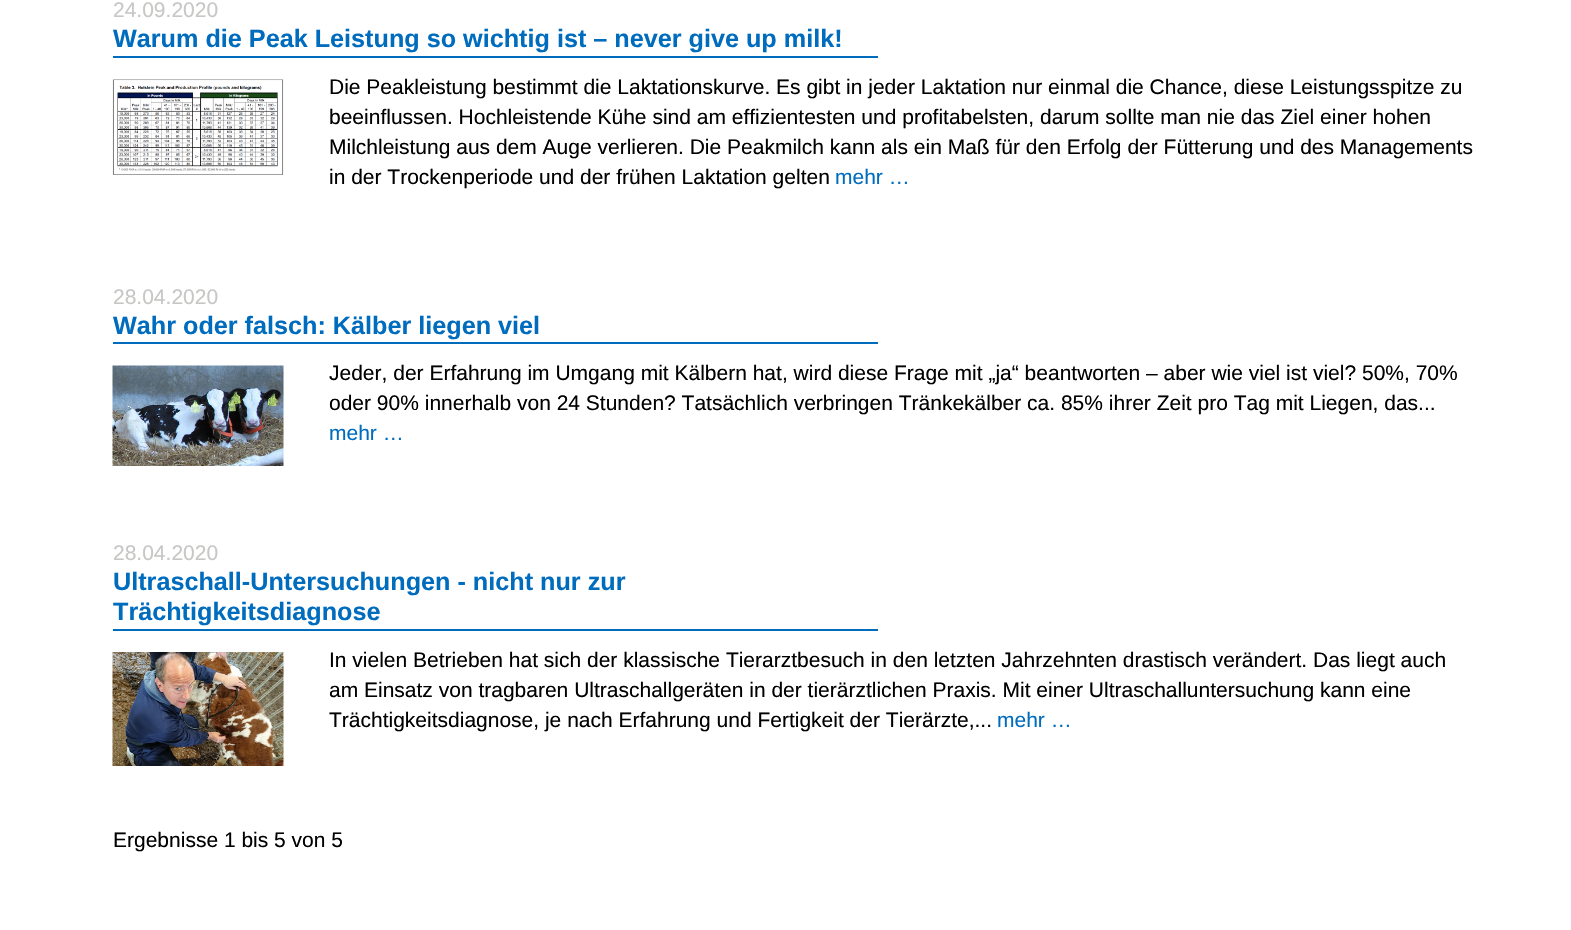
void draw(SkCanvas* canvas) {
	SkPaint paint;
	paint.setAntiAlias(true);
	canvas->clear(0xffffffff);
	SkFont f1(fontMgr->matchFamilyStyle("Liberation Sans", SkFontStyle::Normal()), 21);
	f1.setSubpixel(true);
	paint.setColor(0xffc7c7c5);
	canvas->drawString("24.09.2020", 113, 17, f1, paint);
	paint.setColor(0xff006cbe);
	canvas->drawRect(SkRect::MakeXYWH(113, 56, 765, 2), paint);
	SkFont f2(fontMgr->matchFamilyStyle("Liberation Sans", SkFontStyle::Bold()), 25.2);
	f2.setSubpixel(true);
	canvas->drawString("Warum die Peak Leistung so wichtig ist – never give up milk!", 113, 47, f2, paint);
	canvas->drawImageRect(SkImages::DeferredFromEncodedData(SkData::MakeFromFileName("img1.png")), SkRect::MakeXYWH(112, 79, 172, 96), SkSamplingOptions());
	paint.setColor(0xff000000);
	canvas->drawString("Die Peakleistung bestimmt die Laktationskurve. Es gibt in jeder Laktation nur einmal die Chance, diese Leistungsspitze zu", 329, 94, f1, paint);
	canvas->drawString("beeinflussen. Hochleistende Kühe sind am effizientesten und profitabelsten, darum sollte man nie das Ziel einer hohen", 329, 124, f1, paint);
	canvas->drawString("Milchleistung aus dem Auge verlieren. Die Peakmilch kann als ein Maß für den Erfolg der Fütterung und des Managements", 329, 154, f1, paint);
	canvas->drawString("in der Trockenperiode und der frühen Laktation gelten", 329, 184, f1, paint);
	paint.setColor(0xff006cbe);
	canvas->drawString("mehr …", 835, 184, f1, paint);
	paint.setColor(0xffc7c7c5);
	canvas->drawString("28.04.2020", 113, 304, f1, paint);
	paint.setColor(0xff006cbe);
	canvas->drawRect(SkRect::MakeXYWH(113, 342, 765, 2), paint);
	canvas->drawString("Wahr oder falsch: Kälber liegen viel", 113, 334, f2, paint);
	canvas->drawImageRect(SkImages::DeferredFromEncodedData(SkData::MakeFromFileName("img2.png")), SkRect::MakeXYWH(112, 365, 172, 101), SkSamplingOptions());
	paint.setColor(0xff000000);
	canvas->drawString("Jeder, der Erfahrung im Umgang mit Kälbern hat, wird diese Frage mit „ja“ beantworten – aber wie viel ist viel? 50%, 70%", 329, 380, f1, paint);
	canvas->drawString("oder 90% innerhalb von 24 Stunden? Tatsächlich verbringen Tränkekälber ca. 85% ihrer Zeit pro Tag mit Liegen, das...", 329, 410, f1, paint);
	paint.setColor(0xff006cbe);
	canvas->drawString("mehr …", 329, 440, f1, paint);
	paint.setColor(0xffc7c7c5);
	canvas->drawString("28.04.2020", 113, 560, f1, paint);
	paint.setColor(0xff006cbe);
	canvas->drawRect(SkRect::MakeXYWH(113, 629, 765, 2), paint);
	canvas->drawString("Ultraschall-Untersuchungen - nicht nur zur", 113, 590, f2, paint);
	canvas->drawString("Trächtigkeitsdiagnose", 113, 620, f2, paint);
	canvas->drawImageRect(SkImages::DeferredFromEncodedData(SkData::MakeFromFileName("img3.png")), SkRect::MakeXYWH(112, 652, 172, 114), SkSamplingOptions());
	paint.setColor(0xff000000);
	canvas->drawString("In vielen Betrieben hat sich der klassische Tierarztbesuch in den letzten Jahrzehnten drastisch verändert. Das liegt auch", 329, 667, f1, paint);
	canvas->drawString("am Einsatz von tragbaren Ultraschallgeräten in der tierärztlichen Praxis. Mit einer Ultraschalluntersuchung kann eine", 329, 697, f1, paint);
	canvas->drawString("Trächtigkeitsdiagnose, je nach Erfahrung und Fertigkeit der Tierärzte,...", 329, 727, f1, paint);
	paint.setColor(0xff006cbe);
	canvas->drawString("mehr …", 997, 727, f1, paint);
	paint.setColor(0xff000000);
	canvas->drawString("Ergebnisse 1 bis 5 von 5", 113, 847, f1, paint);
}
